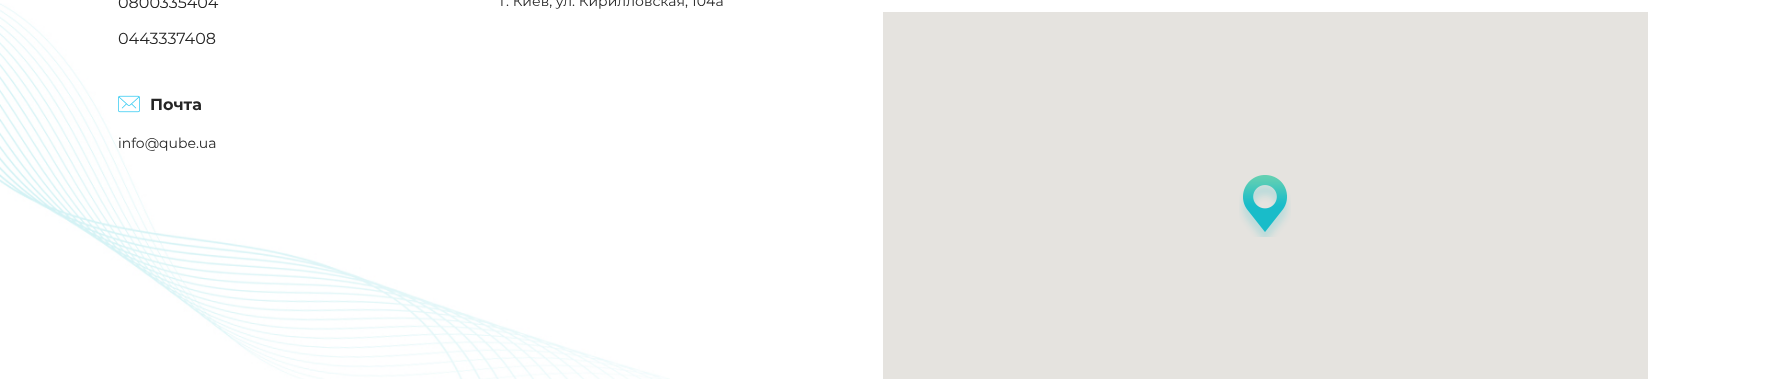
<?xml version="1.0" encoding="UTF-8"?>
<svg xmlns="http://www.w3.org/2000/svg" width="1765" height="379">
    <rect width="100%" height="100%" fill="#FFFFFF"/>
    <image x="0" y="3" width="670" height="376" href="img_01.png"/>
    <text x="118" y="8" font-family="Montserrat" font-size="16" fill="#252525">0800335404</text>
    <text x="118" y="44" font-family="Montserrat" font-size="16" fill="#252525">0443337408</text>
    <text x="500" y="6" font-family="Montserrat" font-size="14" fill="#252525">г. Киев, ул. Кирилловская, 104а</text>
    <image x="118" y="95" width="22" height="18" href="img_02.png"/>
    <text x="150" y="110" font-family="Montserrat" font-size="16" font-weight="700" fill="#252525">Почта</text>
    <text x="118" y="148" font-family="Montserrat" font-size="14" fill="#252525">info@qube.ua</text>
    <rect x="883" y="12" width="765" height="367" fill="#E5E3DF"/>
    <image x="1239" y="175" width="52" height="62" href="img_03.png"/>
</svg>
